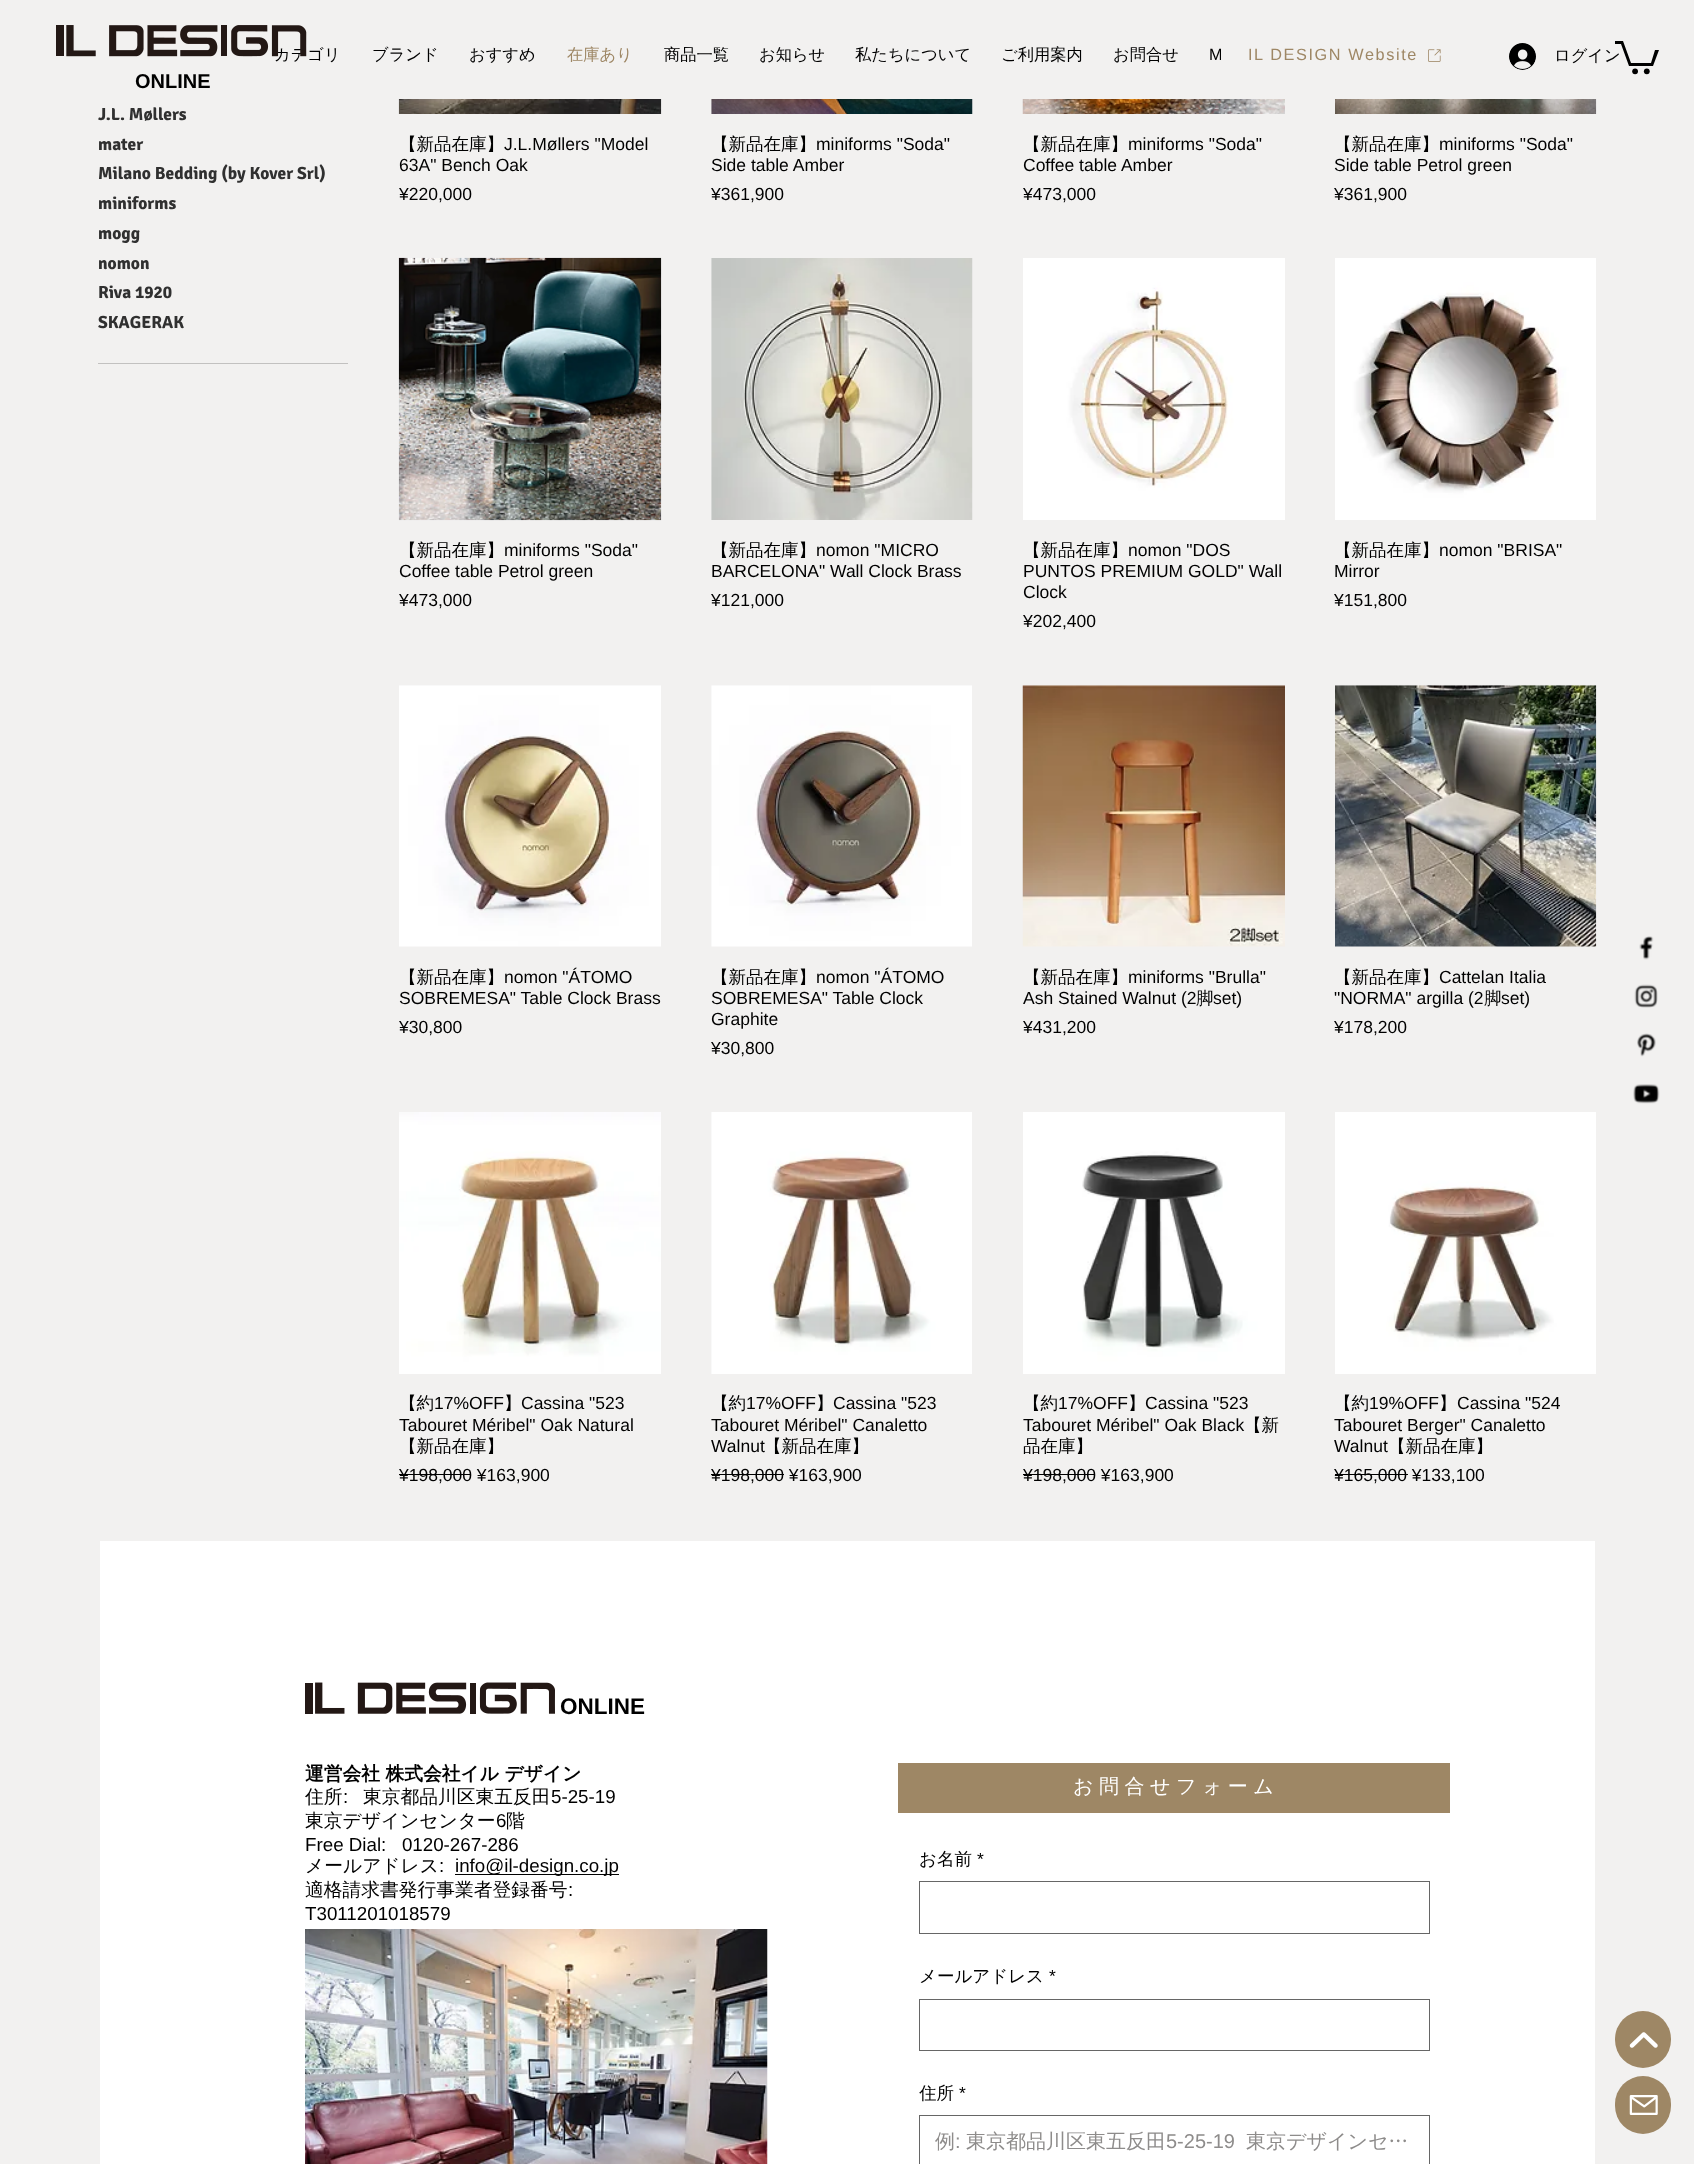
<?xml version="1.0" encoding="UTF-8"?>
<svg xmlns="http://www.w3.org/2000/svg" width="1694" height="2164">
    <rect width="100%" height="100%" fill="#F2F1F0"/>
    <text x="274" y="60" font-family="WenQuanYi Zen Hei" font-size="16.25" font-weight="500" fill="#000000">カテゴリ</text>
    <text x="372" y="60" font-family="WenQuanYi Zen Hei" font-size="16.25" font-weight="500" fill="#000000">ブランド</text>
    <text x="469" y="60" font-family="WenQuanYi Zen Hei" font-size="16.25" font-weight="500" fill="#000000">おすすめ</text>
    <text x="567" y="60" font-family="WenQuanYi Zen Hei" font-size="16.25" font-weight="500" fill="#9E8765">在庫あり</text>
    <text x="664" y="60" font-family="WenQuanYi Zen Hei" font-size="16.25" font-weight="500" fill="#000000">商品一覧</text>
    <text x="759" y="60" font-family="WenQuanYi Zen Hei" font-size="16.25" font-weight="500" fill="#000000">お知らせ</text>
    <text x="855" y="60" font-family="WenQuanYi Zen Hei" font-size="16.25" font-weight="500" fill="#000000">私たちについて</text>
    <text x="1001" y="60" font-family="WenQuanYi Zen Hei" font-size="16.25" font-weight="500" fill="#000000">ご利用案内</text>
    <text x="1113" y="60" font-family="WenQuanYi Zen Hei" font-size="16.25" font-weight="500" fill="#000000">お問合せ</text>
    <text x="1209" y="60" font-family="Liberation Sans" font-size="16.25" fill="#000000">M</text>
    <rect x="1221" y="48" width="1" height="12" fill="#F2F1F0"/>
    <text x="1248" y="60" font-family="Liberation Sans" font-size="16.25" letter-spacing="1.6" fill="#9E8765">IL DESIGN Website</text>
    <image x="1428" y="49" width="13" height="13" href="img_01.png"/>
    <image x="1509" y="43" width="27" height="27" href="img_02.png"/>
    <path d="M 1659 50 L 1653 66 H 1629 L 1621 44 H 1615 V 41 H 1623 L 1631 63 H 1651 L 1655 50" fill="#000000"/>
    <text x="1554" y="61" font-family="WenQuanYi Zen Hei" font-size="16.25" font-weight="500" fill="#000000">ログイン</text>
    <circle cx="1646.8" cy="71.3" r="2.9" fill="#000000"/>
    <circle cx="1635.1" cy="71.3" r="2.9" fill="#000000"/>
    <image x="56" y="25" width="251" height="32" href="img_03.png"/>
    <text x="135" y="88" font-family="Liberation Sans" font-size="20" font-weight="700" fill="#000000">ONLINE</text>
    <rect x="98" y="363" width="250" height="1" fill="#C2C1C0"/>
    <text font-family="Signika" font-size="17.5" font-weight="700" fill="#303030">
        <tspan x="98" y="120">J.L. Møllers</tspan>
        <tspan x="98" y="150">mater</tspan>
        <tspan x="98" y="179">Milano Bedding (by Kover Srl)</tspan>
        <tspan x="98" y="209">miniforms</tspan>
        <tspan x="98" y="239">mogg</tspan>
        <tspan x="98" y="269">nomon</tspan>
        <tspan x="98" y="298">Riva 1920</tspan>
        <tspan x="98" y="328">SKAGERAK</tspan>
    </text>
    <image x="398" y="99" width="264" height="15" href="img_04.png"/>
    <text x="399" y="150" font-family="WenQuanYi Zen Hei" font-size="17.5" font-weight="500" fill="#000000">【新品在庫】</text>
    <text x="504" y="150" font-family="Liberation Sans" font-size="17.5" fill="#000000">J.L.Møllers "Model</text>
    <text font-family="Liberation Sans" font-size="17.5" fill="#000000">
        <tspan x="399" y="171">63A" Bench Oak</tspan>
        <tspan x="399" y="200">¥220,000</tspan>
    </text>
    <image x="711" y="99" width="262" height="15" href="img_05.png"/>
    <text x="711" y="150" font-family="WenQuanYi Zen Hei" font-size="17.5" font-weight="500" fill="#000000">【新品在庫】</text>
    <text x="816" y="150" font-family="Liberation Sans" font-size="17.5" fill="#000000">miniforms "Soda"</text>
    <text font-family="Liberation Sans" font-size="17.5" fill="#000000">
        <tspan x="711" y="171">Side table Amber</tspan>
        <tspan x="711" y="200">¥361,900</tspan>
    </text>
    <image x="1022" y="99" width="263" height="15" href="img_06.png"/>
    <text x="1023" y="150" font-family="WenQuanYi Zen Hei" font-size="17.5" font-weight="500" fill="#000000">【新品在庫】</text>
    <text x="1128" y="150" font-family="Liberation Sans" font-size="17.5" fill="#000000">miniforms "Soda"</text>
    <text font-family="Liberation Sans" font-size="17.5" fill="#000000">
        <tspan x="1023" y="171">Coffee table Amber</tspan>
        <tspan x="1023" y="200">¥473,000</tspan>
    </text>
    <image x="1335" y="99" width="262" height="15" href="img_07.png"/>
    <text x="1334" y="150" font-family="WenQuanYi Zen Hei" font-size="17.5" font-weight="500" fill="#000000">【新品在庫】</text>
    <text x="1439" y="150" font-family="Liberation Sans" font-size="17.5" fill="#000000">miniforms "Soda"</text>
    <text font-family="Liberation Sans" font-size="17.5" fill="#000000">
        <tspan x="1334" y="171">Side table Petrol green</tspan>
        <tspan x="1334" y="200">¥361,900</tspan>
    </text>
    <image x="398" y="257" width="264" height="264" href="img_08.png"/>
    <text x="399" y="556" font-family="WenQuanYi Zen Hei" font-size="17.5" font-weight="500" fill="#000000">【新品在庫】</text>
    <text x="504" y="556" font-family="Liberation Sans" font-size="17.5" fill="#000000">miniforms "Soda"</text>
    <text font-family="Liberation Sans" font-size="17.5" fill="#000000">
        <tspan x="399" y="577">Coffee table Petrol green</tspan>
        <tspan x="399" y="606">¥473,000</tspan>
    </text>
    <image x="711" y="258" width="262" height="262" href="img_09.png"/>
    <text x="711" y="556" font-family="WenQuanYi Zen Hei" font-size="17.5" font-weight="500" fill="#000000">【新品在庫】</text>
    <text x="816" y="556" font-family="Liberation Sans" font-size="17.5" fill="#000000">nomon "MICRO</text>
    <text font-family="Liberation Sans" font-size="17.5" fill="#000000">
        <tspan x="711" y="577">BARCELONA" Wall Clock Brass</tspan>
        <tspan x="711" y="606">¥121,000</tspan>
    </text>
    <image x="1023" y="258" width="262" height="262" href="img_10.png"/>
    <text x="1023" y="556" font-family="WenQuanYi Zen Hei" font-size="17.5" font-weight="500" fill="#000000">【新品在庫】</text>
    <text x="1128" y="556" font-family="Liberation Sans" font-size="17.5" fill="#000000">nomon "DOS</text>
    <text font-family="Liberation Sans" font-size="17.5" fill="#000000">
        <tspan x="1023" y="577">PUNTOS PREMIUM GOLD" Wall</tspan>
        <tspan x="1023" y="598">Clock</tspan>
        <tspan x="1023" y="627">¥202,400</tspan>
    </text>
    <image x="1335" y="258" width="261" height="262" href="img_11.png"/>
    <text x="1334" y="556" font-family="WenQuanYi Zen Hei" font-size="17.5" font-weight="500" fill="#000000">【新品在庫】</text>
    <text x="1439" y="556" font-family="Liberation Sans" font-size="17.5" fill="#000000">nomon "BRISA"</text>
    <text font-family="Liberation Sans" font-size="17.5" fill="#000000">
        <tspan x="1334" y="577">Mirror</tspan>
        <tspan x="1334" y="606">¥151,800</tspan>
    </text>
    <image x="399" y="685" width="262" height="262" href="img_12.png"/>
    <text x="399" y="983" font-family="WenQuanYi Zen Hei" font-size="17.5" font-weight="500" fill="#000000">【新品在庫】</text>
    <text x="504" y="983" font-family="Liberation Sans" font-size="17.5" fill="#000000">nomon "ÁTOMO</text>
    <text font-family="Liberation Sans" font-size="17.5" fill="#000000">
        <tspan x="399" y="1004">SOBREMESA" Table Clock Brass</tspan>
        <tspan x="399" y="1033">¥30,800</tspan>
    </text>
    <image x="711" y="685" width="261" height="262" href="img_13.png"/>
    <text x="711" y="983" font-family="WenQuanYi Zen Hei" font-size="17.5" font-weight="500" fill="#000000">【新品在庫】</text>
    <text x="816" y="983" font-family="Liberation Sans" font-size="17.5" fill="#000000">nomon "ÁTOMO</text>
    <text font-family="Liberation Sans" font-size="17.5" fill="#000000">
        <tspan x="711" y="1004">SOBREMESA" Table Clock</tspan>
        <tspan x="711" y="1025">Graphite</tspan>
        <tspan x="711" y="1054">¥30,800</tspan>
    </text>
    <image x="1022" y="685" width="263" height="262" href="img_14.png"/>
    <text x="1023" y="983" font-family="WenQuanYi Zen Hei" font-size="17.5" font-weight="500" fill="#000000">【新品在庫】</text>
    <text x="1128" y="983" font-family="Liberation Sans" font-size="17.5" fill="#000000">miniforms "Brulla"</text>
    <text x="1023" y="1004" font-family="Liberation Sans" font-size="17.5" fill="#000000">Ash Stained Walnut (2</text>
    <text x="1196" y="1004" font-family="WenQuanYi Zen Hei" font-size="17.5" font-weight="500" fill="#000000">脚</text>
    <text x="1213" y="1004" font-family="Liberation Sans" font-size="17.5" fill="#000000">set)</text>
    <text x="1023" y="1033" font-family="Liberation Sans" font-size="17.5" fill="#000000">¥431,200</text>
    <image x="1335" y="685" width="262" height="262" href="img_15.png"/>
    <text x="1334" y="983" font-family="WenQuanYi Zen Hei" font-size="17.5" font-weight="500" fill="#000000">【新品在庫】</text>
    <text x="1439" y="983" font-family="Liberation Sans" font-size="17.5" fill="#000000">Cattelan Italia</text>
    <text x="1334" y="1004" font-family="Liberation Sans" font-size="17.5" fill="#000000">"NORMA" argilla (2</text>
    <text x="1484" y="1004" font-family="WenQuanYi Zen Hei" font-size="17.5" font-weight="500" fill="#000000">脚</text>
    <text x="1501" y="1004" font-family="Liberation Sans" font-size="17.5" fill="#000000">set)</text>
    <text x="1334" y="1033" font-family="Liberation Sans" font-size="17.5" fill="#000000">¥178,200</text>
    <image x="399" y="1112" width="262" height="262" href="img_16.png"/>
    <text x="399" y="1409" font-family="WenQuanYi Zen Hei" font-size="17.5" font-weight="500" fill="#000000">【約</text>
    <text x="434" y="1409" font-family="Liberation Sans" font-size="17.5" fill="#000000">17%OFF</text>
    <text x="504" y="1409" font-family="WenQuanYi Zen Hei" font-size="17.5" font-weight="500" fill="#000000">】</text>
    <text x="521" y="1409" font-family="Liberation Sans" font-size="17.5" fill="#000000">Cassina "523</text>
    <text x="399" y="1431" font-family="Liberation Sans" font-size="17.5" fill="#000000">Tabouret Méribel" Oak Natural</text>
    <text x="399" y="1452" font-family="WenQuanYi Zen Hei" font-size="17.5" font-weight="500" fill="#000000">【新品在庫】</text>
    <text x="399" y="1481" font-family="Liberation Sans" font-size="17.5" fill="#000000">¥198,000 ¥163,900</text>
    <rect x="399" y="1474" width="72" height="1" fill="#000000"/>
    <image x="711" y="1112" width="261" height="262" href="img_17.png"/>
    <text x="711" y="1409" font-family="WenQuanYi Zen Hei" font-size="17.5" font-weight="500" fill="#000000">【約</text>
    <text x="746" y="1409" font-family="Liberation Sans" font-size="17.5" fill="#000000">17%OFF</text>
    <text x="816" y="1409" font-family="WenQuanYi Zen Hei" font-size="17.5" font-weight="500" fill="#000000">】</text>
    <text x="833" y="1409" font-family="Liberation Sans" font-size="17.5" fill="#000000">Cassina "523</text>
    <text font-family="Liberation Sans" font-size="17.5" fill="#000000">
        <tspan x="711" y="1431">Tabouret Méribel" Canaletto</tspan>
        <tspan x="711" y="1452">Walnut</tspan>
    </text>
    <text x="764" y="1452" font-family="WenQuanYi Zen Hei" font-size="17.5" font-weight="500" fill="#000000">【新品在庫】</text>
    <text x="711" y="1481" font-family="Liberation Sans" font-size="17.5" fill="#000000">¥198,000 ¥163,900</text>
    <rect x="711" y="1474" width="73" height="1" fill="#000000"/>
    <image x="1023" y="1112" width="262" height="262" href="img_18.png"/>
    <text x="1023" y="1409" font-family="WenQuanYi Zen Hei" font-size="17.5" font-weight="500" fill="#000000">【約</text>
    <text x="1058" y="1409" font-family="Liberation Sans" font-size="17.5" fill="#000000">17%OFF</text>
    <text x="1128" y="1409" font-family="WenQuanYi Zen Hei" font-size="17.5" font-weight="500" fill="#000000">】</text>
    <text x="1145" y="1409" font-family="Liberation Sans" font-size="17.5" fill="#000000">Cassina "523</text>
    <text x="1023" y="1431" font-family="Liberation Sans" font-size="17.5" fill="#000000">Tabouret Méribel" Oak Black</text>
    <text x="1244" y="1431" font-family="WenQuanYi Zen Hei" font-size="17.5" font-weight="500" fill="#000000">【新</text>
    <text x="1023" y="1452" font-family="WenQuanYi Zen Hei" font-size="17.5" font-weight="500" fill="#000000">品在庫】</text>
    <text x="1023" y="1481" font-family="Liberation Sans" font-size="17.5" fill="#000000">¥198,000 ¥163,900</text>
    <rect x="1023" y="1474" width="72" height="1" fill="#000000"/>
    <image x="1335" y="1112" width="261" height="262" href="img_19.png"/>
    <text x="1334" y="1409" font-family="WenQuanYi Zen Hei" font-size="17.5" font-weight="500" fill="#000000">【約</text>
    <text x="1369" y="1409" font-family="Liberation Sans" font-size="17.5" fill="#000000">19%OFF</text>
    <text x="1439" y="1409" font-family="WenQuanYi Zen Hei" font-size="17.5" font-weight="500" fill="#000000">】</text>
    <text x="1457" y="1409" font-family="Liberation Sans" font-size="17.5" fill="#000000">Cassina "524</text>
    <text font-family="Liberation Sans" font-size="17.5" fill="#000000">
        <tspan x="1334" y="1431">Tabouret Berger" Canaletto</tspan>
        <tspan x="1334" y="1452">Walnut</tspan>
    </text>
    <text x="1388" y="1452" font-family="WenQuanYi Zen Hei" font-size="17.5" font-weight="500" fill="#000000">【新品在庫】</text>
    <text x="1334" y="1481" font-family="Liberation Sans" font-size="17.5" fill="#000000">¥165,000 ¥133,100</text>
    <rect x="1335" y="1474" width="73" height="1" fill="#000000"/>
    <image x="1639" y="936" width="15" height="24" href="img_20.png"/>
    <image x="1634" y="984" width="24" height="24" href="img_21.png"/>
    <image x="1637" y="1033" width="19" height="24" href="img_22.png"/>
    <image x="1633" y="1084" width="27" height="20" href="img_23.png"/>
    <rect x="100" y="1541" width="1495" height="623" fill="#FFFFFF"/>
    <image x="305" y="1682" width="250" height="32" href="img_24.png"/>
    <text x="560" y="1714" font-family="Liberation Sans" font-size="22.5" font-weight="700" fill="#000000">ONLINE</text>
    <text x="305" y="1780" font-family="WenQuanYi Zen Hei" font-size="18.75" font-weight="700" fill="#000000">運営会社 株式会社イル デザイン</text>
    <text x="305" y="1803" font-family="WenQuanYi Zen Hei" font-size="18.75" font-weight="500" fill="#000000">住所</text>
    <text x="343" y="1803" font-family="Liberation Sans" font-size="18.75" fill="#000000">:</text>
    <text x="363" y="1803" font-family="WenQuanYi Zen Hei" font-size="18.75" font-weight="500" fill="#000000">東京都品川区東五反田</text>
    <text x="551" y="1803" font-family="Liberation Sans" font-size="18.75" fill="#000000">5-25-19</text>
    <text x="305" y="1827" font-family="WenQuanYi Zen Hei" font-size="18.75" font-weight="500" fill="#000000">東京デザインセンター</text>
    <text x="496" y="1827" font-family="Liberation Sans" font-size="18.75" fill="#000000">6</text>
    <text x="506" y="1827" font-family="WenQuanYi Zen Hei" font-size="18.75" font-weight="500" fill="#000000">階</text>
    <text x="305" y="1851" font-family="Liberation Sans" font-size="18.75" fill="#000000" xml:space="preserve">Free Dial:   0120-267-286</text>
    <text x="305" y="1872" font-family="WenQuanYi Zen Hei" font-size="18.75" font-weight="500" fill="#000000">メールアドレス</text>
    <text x="439" y="1872" font-family="Liberation Sans" font-size="18.75" fill="#000000">:</text>
    <rect x="455" y="1874" width="164" height="1" fill="#000000"/>
    <text x="455" y="1872" font-family="Liberation Sans" font-size="18.75" fill="#000000">info@il-design.co.jp</text>
    <text x="305" y="1896" font-family="WenQuanYi Zen Hei" font-size="18.75" font-weight="500" fill="#000000">適格請求書発行事業者登録番号</text>
    <text x="568" y="1896" font-family="Liberation Sans" font-size="18.75" fill="#000000">:</text>
    <text x="305" y="1920" font-family="Liberation Sans" font-size="18.75" fill="#000000">T3011201018579</text>
    <rect x="898" y="1763" width="552" height="50" fill="#9E8765"/>
    <text x="1073" y="1793" word-spacing="-0.5" font-family="WenQuanYi Zen Hei" font-size="20" font-weight="500" fill="#FFFFFF">お 問 合 せ フ ォ ー ム</text>
    <image x="305" y="1929" width="463" height="235" href="img_25.png"/>
    <text x="919" y="1865" font-family="WenQuanYi Zen Hei" font-size="17.5" font-weight="500" fill="#000000">お名前</text>
    <text x="977" y="1865" font-family="Liberation Sans" font-size="17.5" fill="#000000">*</text>
    <rect x="919.5" y="1881.5" width="510" height="52" fill="none" stroke="#666666"/>
    <text x="919" y="1982" font-family="WenQuanYi Zen Hei" font-size="17.5" font-weight="500" fill="#000000">メールアドレス</text>
    <text x="1049" y="1982" font-family="Liberation Sans" font-size="17.5" fill="#000000">*</text>
    <rect x="919.5" y="1999.5" width="510" height="51" fill="none" stroke="#666666"/>
    <text x="919" y="2099" font-family="WenQuanYi Zen Hei" font-size="17.5" font-weight="500" fill="#000000">住所</text>
    <text x="959" y="2099" font-family="Liberation Sans" font-size="17.5" fill="#000000">*</text>
    <rect x="919.5" y="2115.5" width="510" height="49" fill="none" stroke="#666666"/>
    <text x="935" y="2148" font-family="WenQuanYi Zen Hei" font-size="20" font-weight="500" fill="#8E8C8B">例</text>
    <text x="955" y="2148" font-family="Liberation Sans" font-size="20" fill="#8E8C8B">:</text>
    <text x="966" y="2148" font-family="WenQuanYi Zen Hei" font-size="20" font-weight="500" fill="#8E8C8B">東京都品川区東五反田</text>
    <text x="1166" y="2148" font-family="Liberation Sans" font-size="20" fill="#8E8C8B">5-25-19</text>
    <text x="1246" y="2148" font-family="WenQuanYi Zen Hei" font-size="20" font-weight="500" fill="#8E8C8B">東京デザインセ…</text>
    <rect x="1615" y="2011" width="56" height="57" rx="28" fill="#9E8765"/>
    <image x="1629" y="2032" width="29" height="16" href="img_26.png"/>
    <rect x="1615" y="2076" width="56" height="58" rx="28" fill="#9E8765"/>
    <image x="1629" y="2095" width="29" height="20" href="img_27.png"/>
</svg>
